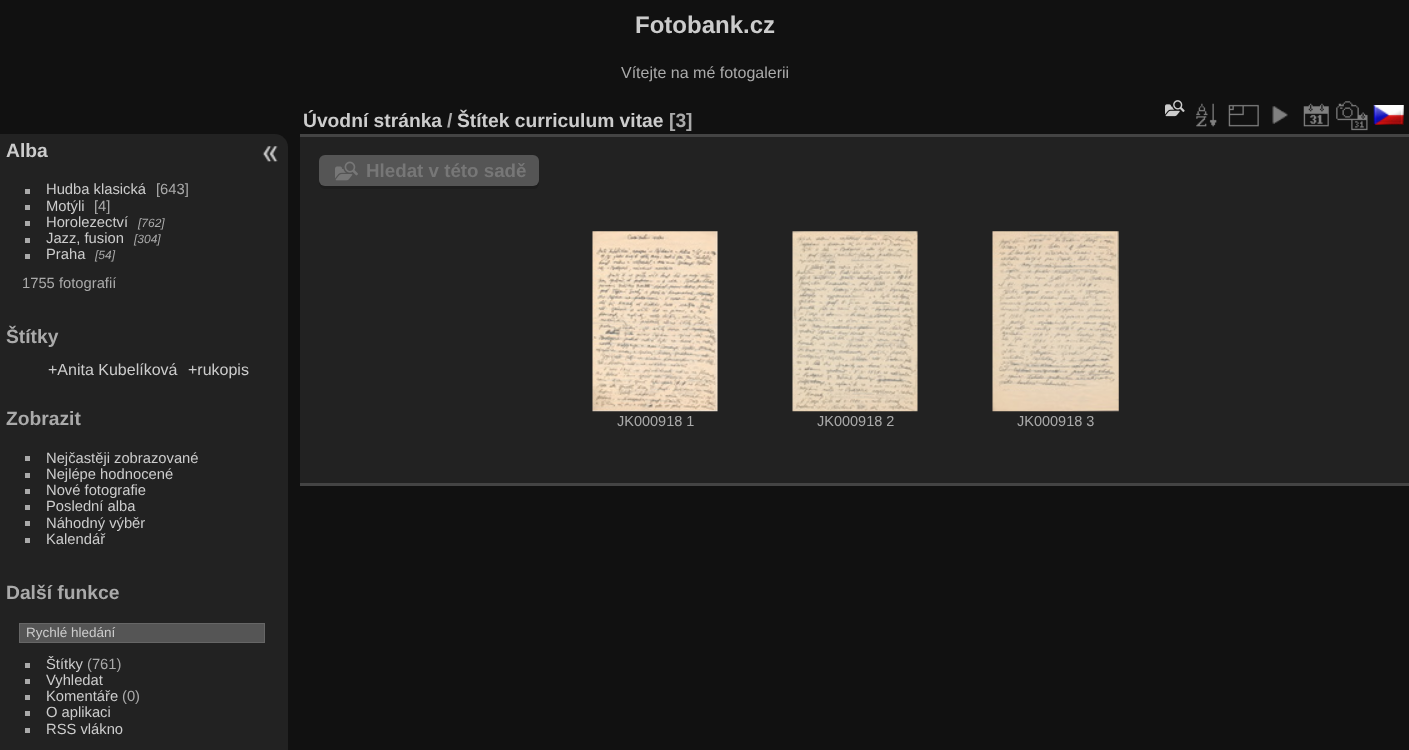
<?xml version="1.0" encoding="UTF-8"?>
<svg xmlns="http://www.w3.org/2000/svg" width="1409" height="750">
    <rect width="100%" height="100%" fill="#111111"/>
    <text x="635" y="33" font-family="Liberation Sans" font-size="24" font-weight="700" fill="#CCCCCC">Fotobank.cz</text>
    <text x="621" y="78" font-family="Liberation Sans" font-size="16" fill="#AAAAAA">Vítejte na mé fotogalerii</text>
    <path d="M 0 134 H 275 C 282 134 288 140 288 147 V 750 C 288 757 282 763 275 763 H 0 Z" fill="#222222"/>
    <text x="6" y="157" font-family="Liberation Sans" font-size="19.25" font-weight="700" fill="#CCCCCC">Alba</text>
    <rect x="25" y="189" width="5" height="5" fill="#AAAAAA"/>
    <text x="46" y="194" font-family="Liberation Sans" font-size="14.75" fill="#CCCCCC">Hudba klasická</text>
    <text x="156" y="194" font-family="Liberation Sans" font-size="14.75" fill="#AAAAAA">[643]</text>
    <rect x="25" y="205" width="5" height="5" fill="#AAAAAA"/>
    <text x="46" y="211" font-family="Liberation Sans" font-size="14.75" fill="#CCCCCC">Motýli</text>
    <text x="94" y="211" font-family="Liberation Sans" font-size="14.75" fill="#AAAAAA">[4]</text>
    <rect x="25" y="221" width="5" height="5" fill="#AAAAAA"/>
    <text x="46" y="227" font-family="Liberation Sans" font-size="14.75" fill="#CCCCCC">Horolezectví</text>
    <text x="138" y="227" font-family="Liberation Sans" font-size="12" font-style="italic" fill="#AAAAAA">[762]</text>
    <rect x="25" y="238" width="5" height="5" fill="#AAAAAA"/>
    <text x="46" y="243" font-family="Liberation Sans" font-size="14.75" fill="#CCCCCC">Jazz, fusion</text>
    <text x="134" y="243" font-family="Liberation Sans" font-size="12" font-style="italic" fill="#AAAAAA">[304]</text>
    <rect x="25" y="254" width="5" height="5" fill="#AAAAAA"/>
    <text x="46" y="259" font-family="Liberation Sans" font-size="14.75" fill="#CCCCCC">Praha</text>
    <text x="95" y="259" font-family="Liberation Sans" font-size="12" font-style="italic" fill="#AAAAAA">[54]</text>
    <text x="22" y="288" font-family="Liberation Sans" font-size="14.75" fill="#AAAAAA">1755 fotografií</text>
    <text x="6" y="343" font-family="Liberation Sans" font-size="19.25" font-weight="700" fill="#AAAAAA">Štítky</text>
    <text x="48" y="375" font-family="Liberation Sans" font-size="16" fill="#CCCCCC">+Anita Kubelíková</text>
    <text x="188" y="375" font-family="Liberation Sans" font-size="16" fill="#CCCCCC">+rukopis</text>
    <text x="6" y="425" font-family="Liberation Sans" font-size="19.25" font-weight="700" fill="#AAAAAA">Zobrazit</text>
    <rect x="25" y="456" width="5" height="5" fill="#AAAAAA"/>
    <text x="46" y="463" font-family="Liberation Sans" font-size="14.75" fill="#CCCCCC">Nejčastěji zobrazované</text>
    <rect x="25" y="473" width="5" height="5" fill="#AAAAAA"/>
    <text x="46" y="479" font-family="Liberation Sans" font-size="14.75" fill="#CCCCCC">Nejlépe hodnocené</text>
    <rect x="25" y="489" width="5" height="5" fill="#AAAAAA"/>
    <text x="46" y="495" font-family="Liberation Sans" font-size="14.75" fill="#CCCCCC">Nové fotografie</text>
    <rect x="25" y="505" width="5" height="5" fill="#AAAAAA"/>
    <text x="46" y="511" font-family="Liberation Sans" font-size="14.75" fill="#CCCCCC">Poslední alba</text>
    <rect x="25" y="521" width="5" height="5" fill="#AAAAAA"/>
    <text x="46" y="528" font-family="Liberation Sans" font-size="14.75" fill="#CCCCCC">Náhodný výběr</text>
    <rect x="25" y="538" width="5" height="5" fill="#AAAAAA"/>
    <text x="46" y="544" font-family="Liberation Sans" font-size="14.75" fill="#CCCCCC">Kalendář</text>
    <text x="6" y="599" font-family="Liberation Sans" font-size="19.25" font-weight="700" fill="#AAAAAA">Další funkce</text>
    <rect x="19.5" y="623.5" width="245" height="19" fill="#555555" stroke="#666666"/>
    <text x="26" y="637" font-family="Liberation Sans" font-size="13.5" fill="#CCCCCC">Rychlé hledání</text>
    <rect x="25" y="663" width="5" height="5" fill="#AAAAAA"/>
    <text x="46" y="669" font-family="Liberation Sans" font-size="14.75" fill="#CCCCCC">Štítky</text>
    <text x="87" y="669" font-family="Liberation Sans" font-size="14.75" fill="#AAAAAA">(761)</text>
    <rect x="25" y="679" width="5" height="5" fill="#AAAAAA"/>
    <text x="46" y="685" font-family="Liberation Sans" font-size="14.75" fill="#CCCCCC">Vyhledat</text>
    <rect x="25" y="695" width="5" height="5" fill="#AAAAAA"/>
    <text x="46" y="701" font-family="Liberation Sans" font-size="14.75" fill="#CCCCCC">Komentáře</text>
    <text x="122" y="701" font-family="Liberation Sans" font-size="14.75" fill="#AAAAAA">(0)</text>
    <rect x="25" y="711" width="5" height="5" fill="#AAAAAA"/>
    <text x="46" y="717" font-family="Liberation Sans" font-size="14.75" fill="#CCCCCC">O aplikaci</text>
    <rect x="25" y="728" width="5" height="5" fill="#AAAAAA"/>
    <text x="46" y="734" font-family="Liberation Sans" font-size="14.75" fill="#CCCCCC">RSS vlákno</text>
    <image x="262" y="146" width="16" height="16" href="img_01.png"/>
    <rect x="300" y="137" width="1109" height="346" fill="#222222"/>
    <rect x="300" y="483" width="1109" height="3" fill="#444444"/>
    <rect x="300" y="134" width="1109" height="3" fill="#444444"/>
    <text x="303" y="127" font-family="Liberation Sans" font-size="19.25" font-weight="700" fill="#CCCCCC">Úvodní stránka</text>
    <text x="447" y="127" font-family="Liberation Sans" font-size="19.25" font-weight="700" fill="#AAAAAA">/</text>
    <text x="457" y="127" font-family="Liberation Sans" font-size="19.25" font-weight="700" fill="#CCCCCC">Štítek curriculum vitae</text>
    <text x="669" y="127" font-family="Liberation Sans" font-size="19.25" font-weight="700" fill="#AAAAAA">[3]</text>
    <image x="1165" y="100" width="20" height="17" href="img_02.png"/>
    <image x="1196" y="103" width="21" height="24" href="img_03.png"/>
    <image x="1228" y="104" width="31" height="23" href="img_04.png"/>
    <image x="1272" y="106" width="16" height="18" href="img_05.png"/>
    <image x="1303" y="103" width="26" height="24" href="img_06.png"/>
    <image x="1336" y="101" width="32" height="30" href="img_07.png"/>
    <image x="1373" y="105" width="31" height="20" href="img_08.png"/>
    <path d="M 319 182 C 319 185 321 189 325 189 H 533 C 540 189 539 181 539 177 V 162 V 180 C 539 183 536 186 532 186 H 325 C 322 186 320 184 319 182 Z" fill="#1D1D1D"/>
    <rect x="319" y="155" width="220" height="31" rx="6" fill="#555555"/>
    <image x="335" y="161" width="23" height="20" href="img_09.png"/>
    <text x="366" y="177" font-family="Liberation Sans" font-size="18.75" font-weight="700" fill="#777777">Hledat v této sadě</text>
    <image x="592" y="231" width="126" height="181" href="img_10.png"/>
    <text x="617" y="426" font-family="Liberation Sans" font-size="14.5" fill="#AAAAAA">JK000918 1</text>
    <image x="792" y="231" width="126" height="181" href="img_11.png"/>
    <text x="817" y="426" font-family="Liberation Sans" font-size="14.5" fill="#AAAAAA">JK000918 2</text>
    <image x="992" y="231" width="127" height="181" href="img_12.png"/>
    <text x="1017" y="426" font-family="Liberation Sans" font-size="14.5" fill="#AAAAAA">JK000918 3</text>
</svg>
